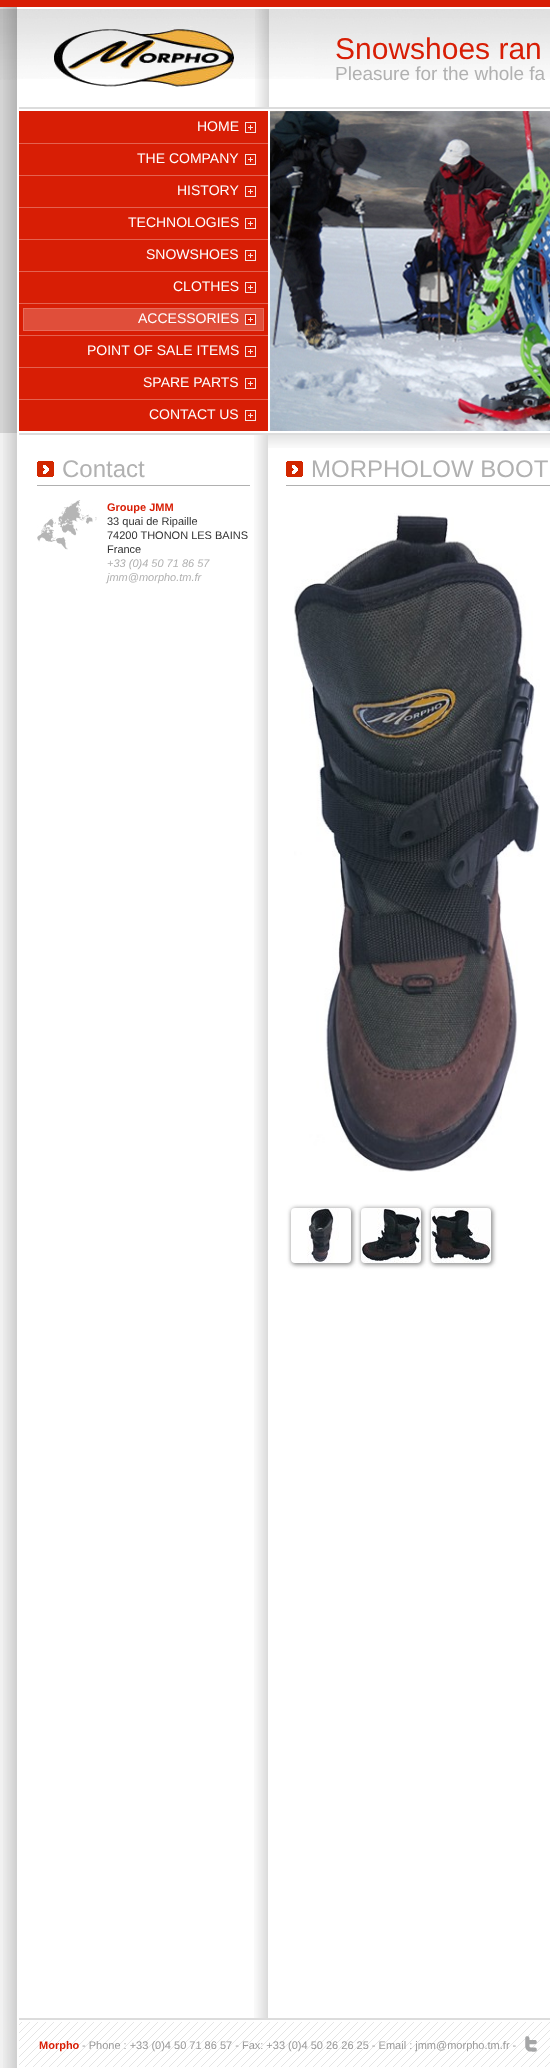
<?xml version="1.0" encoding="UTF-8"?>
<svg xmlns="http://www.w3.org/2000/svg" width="550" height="2068">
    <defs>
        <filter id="blur1" x="-50%" y="-200%" width="200%" height="500%"><feGaussianBlur stdDeviation="2"/></filter>
    </defs>
    <rect width="100%" height="100%" fill="#F1F1F1"/>
    <rect x="0" y="80" width="17" height="353" fill="#D4D4D4"/>
    <image x="0" y="0" width="550" height="80" href="img_01.png"/>
    <image x="3" y="7" width="14" height="426" href="img_02.png"/>
    <rect x="17" y="7" width="533" height="2061" fill="#FFFFFF"/>
    <image x="17" y="9" width="533" height="70" href="img_03.png"/>
    <rect x="19" y="107" width="531" height="2" fill="#DCDCDC"/>
    <image x="255" y="9" width="14" height="98" href="img_04.png"/>
    <image x="54" y="24" width="180" height="63" href="img_05.png"/>
    <text x="335" y="59" font-family="Liberation Sans" font-size="30" fill="#D81E05">Snowshoes ran</text>
    <text x="335" y="80" font-family="Liberation Sans" font-size="19" fill="#B1B1B1">Pleasure for the whole fa</text>
    <rect x="19" y="111" width="249" height="320" fill="#D81E05"/>
    <image x="245" y="122" width="11" height="11" href="img_06.png"/>
    <text x="197" y="131" font-family="Liberation Sans" font-size="14" fill="#FFFFFF">HOME</text>
    <rect x="19" y="143" width="249" height="1" fill="#E46250"/>
    <image x="245" y="154" width="11" height="11" href="img_06.png"/>
    <text x="137" y="163" font-family="Liberation Sans" font-size="14" fill="#FFFFFF">THE COMPANY</text>
    <rect x="19" y="175" width="249" height="1" fill="#E46250"/>
    <image x="245" y="186" width="11" height="11" href="img_06.png"/>
    <text x="177" y="195" font-family="Liberation Sans" font-size="14" fill="#FFFFFF">HISTORY</text>
    <rect x="19" y="207" width="249" height="1" fill="#E46250"/>
    <image x="245" y="218" width="11" height="11" href="img_06.png"/>
    <text x="128" y="227" font-family="Liberation Sans" font-size="14" fill="#FFFFFF">TECHNOLOGIES</text>
    <rect x="19" y="239" width="249" height="1" fill="#E46250"/>
    <image x="245" y="250" width="11" height="11" href="img_06.png"/>
    <text x="146" y="259" font-family="Liberation Sans" font-size="14" fill="#FFFFFF">SNOWSHOES</text>
    <rect x="19" y="271" width="249" height="1" fill="#E46250"/>
    <image x="245" y="282" width="11" height="11" href="img_06.png"/>
    <text x="173" y="291" font-family="Liberation Sans" font-size="14" fill="#FFFFFF">CLOTHES</text>
    <rect x="19" y="303" width="249" height="1" fill="#E46250"/>
    <rect x="23.5" y="308.5" width="240" height="22" fill="#E04E3A" stroke="#E66D5D"/>
    <image x="245" y="314" width="11" height="11" href="img_06.png"/>
    <text x="138" y="323" font-family="Liberation Sans" font-size="14" fill="#FFFFFF">ACCESSORIES</text>
    <rect x="19" y="335" width="249" height="1" fill="#E46250"/>
    <image x="245" y="346" width="11" height="11" href="img_06.png"/>
    <text x="87" y="355" font-family="Liberation Sans" font-size="14" fill="#FFFFFF">POINT OF SALE ITEMS</text>
    <rect x="19" y="367" width="249" height="1" fill="#E46250"/>
    <image x="245" y="378" width="11" height="11" href="img_06.png"/>
    <text x="143" y="387" font-family="Liberation Sans" font-size="14" fill="#FFFFFF">SPARE PARTS</text>
    <rect x="19" y="399" width="249" height="1" fill="#E46250"/>
    <image x="245" y="410" width="11" height="11" href="img_06.png"/>
    <text x="149" y="419" font-family="Liberation Sans" font-size="14" fill="#FFFFFF">CONTACT US</text>
    <image x="270" y="111" width="280" height="320" href="img_07.png"/>
    <image x="3" y="433" width="14" height="1635" href="img_08.png"/>
    <rect x="19" y="433" width="531" height="2" fill="#DCDCDC"/>
    <rect x="19" y="2018" width="531" height="2" fill="#DCDCDC"/>
    <image x="254" y="435" width="14" height="1583" href="img_09.png"/>
    <image x="37" y="461" width="17" height="16" href="img_10.png"/>
    <rect x="37" y="485" width="213" height="1" fill="#B0B0B0"/>
    <text x="62" y="477" font-family="Liberation Sans" font-size="24" fill="#B1B1B1">Contact</text>
    <image x="37" y="500" width="60" height="50" href="img_11.png"/>
    <text x="107" y="511" font-family="Liberation Sans" font-size="11" font-weight="700" fill="#D81E05">Groupe JMM</text>
    <text font-family="Liberation Sans" font-size="11" fill="#313131">
        <tspan x="107" y="525">33 quai de Ripaille</tspan>
        <tspan x="107" y="539">74200 THONON LES BAINS</tspan>
        <tspan x="107" y="553">France</tspan>
    </text>
    <text font-family="Liberation Sans" font-size="11" font-style="italic" fill="#B1B1B1">
        <tspan x="107" y="567">+33 (0)4 50 71 86 57</tspan>
        <tspan x="107" y="581">jmm@morpho.tm.fr</tspan>
    </text>
    <image x="268" y="435" width="282" height="13" href="img_12.png"/>
    <image x="286" y="461" width="17" height="16" href="img_10.png"/>
    <rect x="286" y="485" width="264" height="1" fill="#B0B0B0"/>
    <text x="311" y="477" font-family="Liberation Sans" font-size="24" fill="#B1B1B1">MORPHOLOW BOOT</text>
    <image x="294" y="513" width="246" height="659" href="img_13.png"/>
    <rect x="291" y="1208" width="62" height="57" rx="5" fill="#919191" filter="url(#blur1)"/>
    <image x="291" y="1208" width="60" height="55" href="img_14.png"/>
    <rect x="361" y="1208" width="62" height="57" rx="5" fill="#919191" filter="url(#blur1)"/>
    <image x="361" y="1208" width="60" height="55" href="img_15.png"/>
    <rect x="431" y="1208" width="62" height="57" rx="5" fill="#919191" filter="url(#blur1)"/>
    <image x="431" y="1208" width="60" height="55" href="img_16.png"/>
    <image x="19" y="2022" width="531" height="45" href="img_17.png"/>
    <text x="39" y="2049" font-family="Liberation Sans" font-size="11" font-weight="700" fill="#D81E05">Morpho</text>
    <text x="82" y="2049" font-family="Liberation Sans" font-size="11" fill="#999999">- Phone : +33 (0)4 50 71 86 57 - Fax: +33 (0)4 50 26 26 25 - Email : jmm@morpho.tm.fr -</text>
    <image x="525" y="2036" width="12" height="16" href="img_18.png"/>
</svg>
